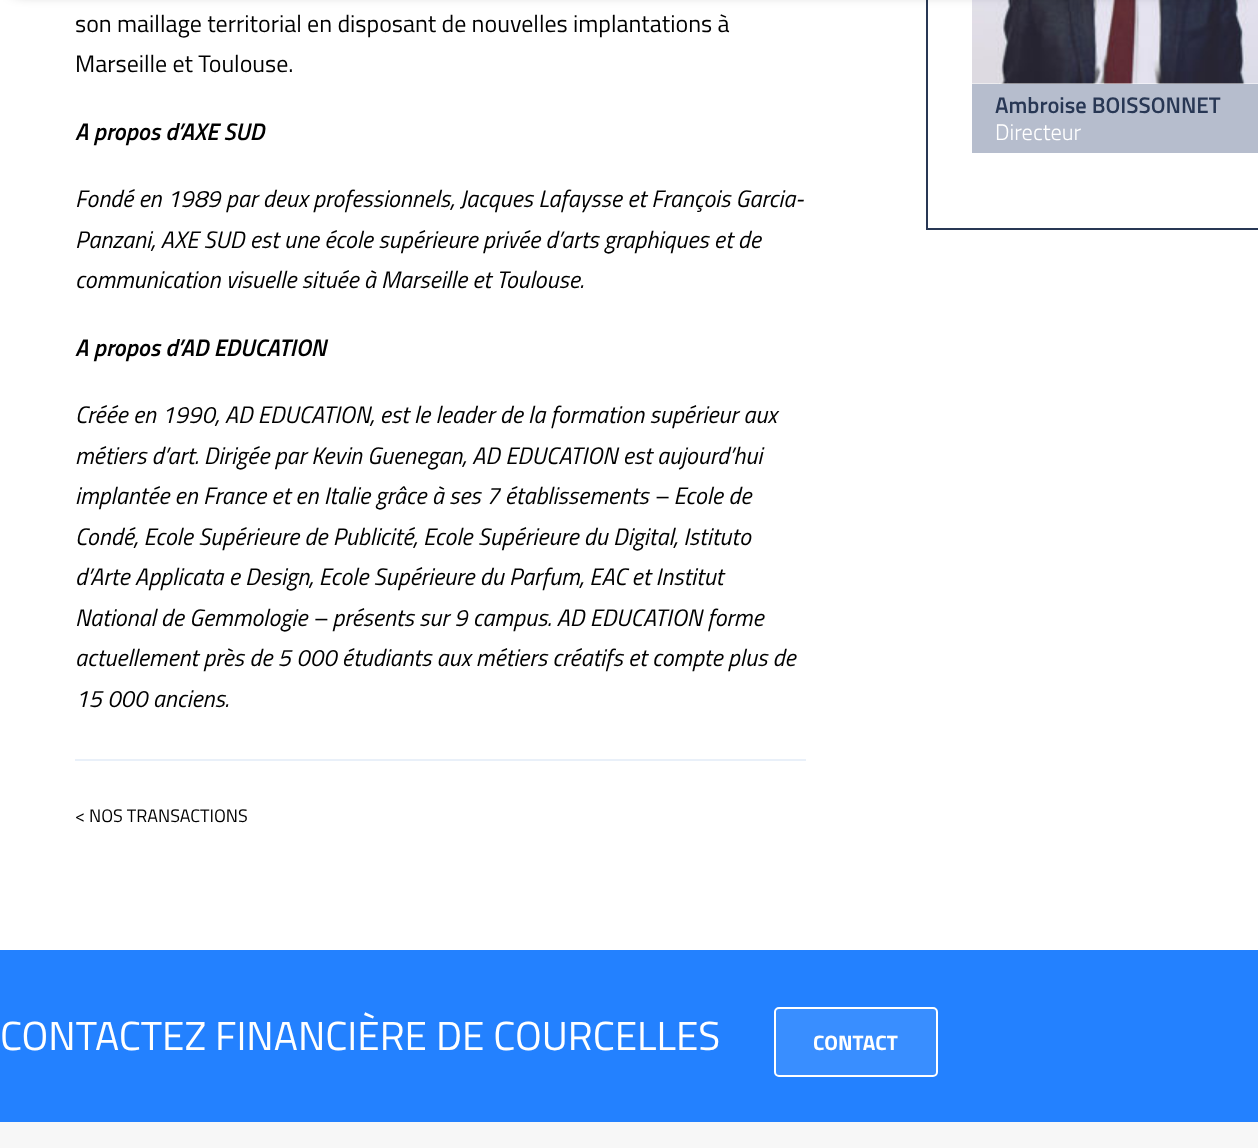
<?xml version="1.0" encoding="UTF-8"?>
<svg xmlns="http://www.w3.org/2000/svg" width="1258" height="1148">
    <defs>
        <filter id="blur1" x="-50%" y="-200%" width="200%" height="500%"><feGaussianBlur stdDeviation="7.5"/></filter>
    </defs>
    <rect width="100%" height="100%" fill="#FFFFFF"/>
    <rect x="927" y="-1" width="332" height="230" fill="none" stroke="#283754" stroke-width="2"/>
    <image x="972" y="0" width="286" height="84" href="img_01.png"/>
    <rect x="15" y="-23" width="1229" height="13" fill="#000000" fill-opacity="0.6" filter="url(#blur1)"/>
    <text font-family="Titillium Web" font-size="24" fill="#000000">
        <tspan x="75" y="32">son maillage territorial en disposant de nouvelles implantations à</tspan>
        <tspan x="75" y="72">Marseille et Toulouse.</tspan>
    </text>
    <text x="75" y="140" font-family="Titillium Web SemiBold" font-size="24" font-weight="600" font-style="italic" fill="#000000">A propos d’AXE SUD</text>
    <text font-family="Titillium Web" font-size="24" font-style="italic" fill="#000000">
        <tspan x="75" y="207">Fondé en 1989 par deux professionnels, Jacques Lafaysse et François Garcia-</tspan>
        <tspan x="75" y="248">Panzani, AXE SUD est une école supérieure privée d’arts graphiques et de</tspan>
        <tspan x="75" y="288">communication visuelle située à Marseille et Toulouse.</tspan>
    </text>
    <text x="75" y="356" font-family="Titillium Web SemiBold" font-size="24" font-weight="600" font-style="italic" fill="#000000">A propos d’AD EDUCATION</text>
    <text font-family="Titillium Web" font-size="24" font-style="italic" fill="#000000">
        <tspan x="75" y="423">Créée en 1990, AD EDUCATION, est le leader de la formation supérieur aux</tspan>
        <tspan x="75" y="464">métiers d’art. Dirigée par Kevin Guenegan, AD EDUCATION est aujourd’hui</tspan>
        <tspan x="75" y="504">implantée en France et en Italie grâce à ses 7 établissements – Ecole de</tspan>
        <tspan x="75" y="545">Condé, Ecole Supérieure de Publicité, Ecole Supérieure du Digital, Istituto</tspan>
        <tspan x="75" y="585">d’Arte Applicata e Design, Ecole Supérieure du Parfum, EAC et Institut</tspan>
        <tspan x="75" y="626">National de Gemmologie – présents sur 9 campus. AD EDUCATION forme</tspan>
        <tspan x="75" y="666">actuellement près de 5 000 étudiants aux métiers créatifs et compte plus de</tspan>
        <tspan x="75" y="707">15 000 anciens.</tspan>
    </text>
    <rect x="75" y="759" width="731" height="2" fill="#E9F0F9"/>
    <text x="75" y="822" font-family="Titillium Web" font-size="18" fill="#000000">&lt; NOS TRANSACTIONS</text>
    <rect x="972" y="84" width="286" height="69" fill="#B6BDCD"/>
    <text x="995" y="113" font-family="Titillium Web SemiBold" font-size="22.5" font-weight="600" fill="#283754">Ambroise BOISSONNET</text>
    <text x="995" y="140" font-family="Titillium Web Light" font-size="22.5" font-weight="300" fill="#FFFFFF">Directeur</text>
    <rect x="0" y="950" width="1258" height="172" fill="#2381FF"/>
    <text x="0" y="1050" font-family="Titillium Web" font-size="40.5" fill="#FFFFFF">CONTACTEZ FINANCIÈRE DE COURCELLES</text>
    <rect x="775" y="1008" width="162" height="68" rx="4" fill="#398EFF" stroke="#FFFFFF" stroke-width="2"/>
    <text x="813" y="1050" font-family="Titillium Web" font-size="21" font-weight="700" fill="#FFFFFF">CONTACT</text>
    <rect x="0" y="1122" width="1258" height="26" fill="#F7F7F7"/>
</svg>
